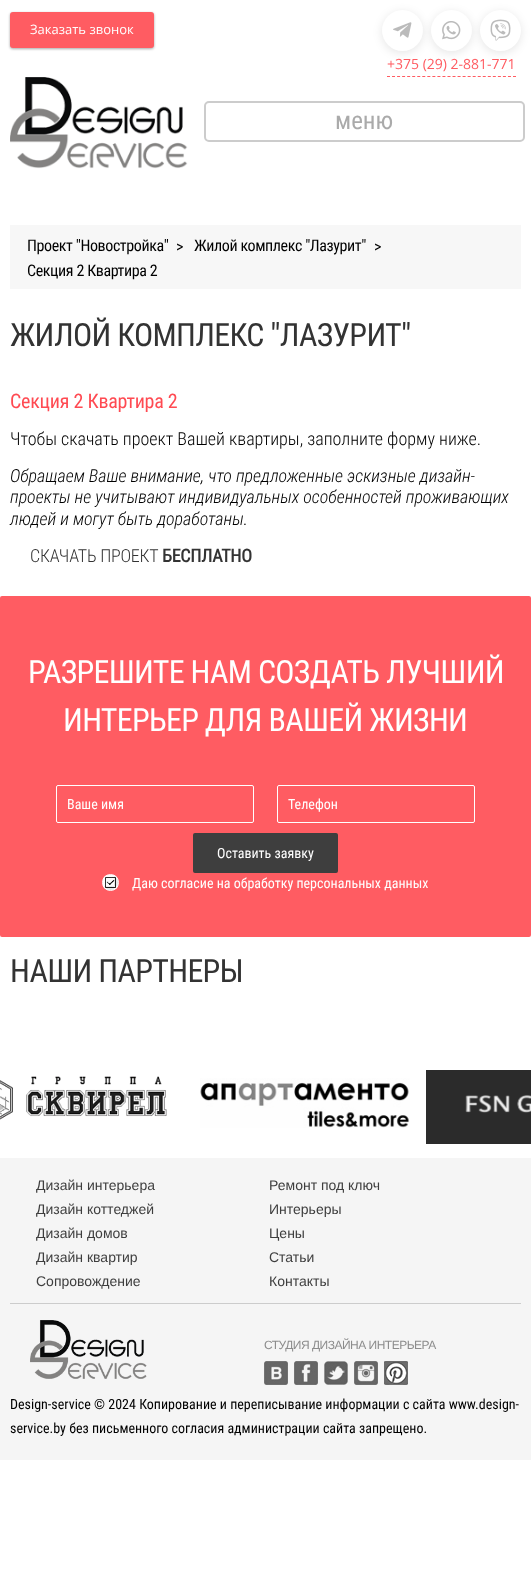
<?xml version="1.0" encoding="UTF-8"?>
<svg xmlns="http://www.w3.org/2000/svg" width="531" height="1596">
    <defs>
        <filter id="blur1" x="-50%" y="-200%" width="200%" height="500%"><feGaussianBlur stdDeviation="1"/></filter>
        <filter id="blur2" x="-50%" y="-200%" width="200%" height="500%"><feGaussianBlur stdDeviation="1.5"/></filter>
        <filter id="blur3" x="-50%" y="-200%" width="200%" height="500%"><feGaussianBlur stdDeviation="5"/></filter>
    </defs>
    <rect width="100%" height="100%" fill="#FFFFFF"/>
    <rect x="10" y="13" width="144" height="36" rx="3" fill="#000000" fill-opacity="0.24" filter="url(#blur1)"/>
    <rect x="10" y="13" width="144" height="36" rx="3" fill="#000000" fill-opacity="0.12" filter="url(#blur2)"/>
    <rect x="10" y="12" width="144" height="36" rx="3" fill="#FF5C62"/>
    <text x="30" y="34" font-family="Open Sans" font-size="13" fill="#FFFFFF">Заказать звонок</text>
    <rect x="382" y="12" width="41" height="41" rx="20.5" fill="#000000" fill-opacity="0.1" filter="url(#blur3)"/>
    <circle cx="402.5" cy="30.5" r="20.5" fill="#FFFFFF"/>
    <image x="393" y="22" width="19" height="16" href="img_01.png"/>
    <rect x="431" y="12" width="41" height="41" rx="20.5" fill="#000000" fill-opacity="0.1" filter="url(#blur3)"/>
    <circle cx="451.5" cy="30.5" r="20.5" fill="#FFFFFF"/>
    <image x="442" y="21" width="19" height="19" href="img_02.png"/>
    <rect x="480" y="12" width="41" height="41" rx="20.5" fill="#000000" fill-opacity="0.1" filter="url(#blur3)"/>
    <circle cx="500.5" cy="30.5" r="20.5" fill="#FFFFFF"/>
    <image x="490" y="19" width="21" height="22" href="img_03.png"/>
    <path d="M 387 76.5 H 516" fill="none" stroke="#FF5C62" stroke-dasharray="3 2.04"/>
    <text x="387" y="69" font-family="Open Sans" font-size="14" fill="#FF5C62">+375 (29) 2-881-771</text>
    <image x="10" y="77" width="178" height="92" href="img_04.png"/>
    <rect x="205" y="102" width="319" height="39" rx="4" fill="none" stroke="#CCCCCC" stroke-width="2"/>
    <text x="335" y="129" font-family="Roboto Condensed" font-size="25" fill="#AAAAAA">меню</text>
    <rect x="10" y="225" width="511" height="64" fill="#F7F7F7"/>
    <text x="27" y="251" font-family="Roboto Condensed" font-size="16" letter-spacing="-0.4" fill="#000000">Проект "Новостройка"</text>
    <text x="176" y="252" font-family="Roboto Condensed" font-size="16" letter-spacing="-0.4" fill="#000000">&gt;</text>
    <text x="194" y="251" font-family="Roboto Condensed" font-size="16" letter-spacing="-0.4" fill="#000000">Жилой комплекс "Лазурит"</text>
    <text x="374" y="252" font-family="Roboto Condensed" font-size="16" letter-spacing="-0.4" fill="#000000">&gt;</text>
    <text x="27" y="276" font-family="Roboto Condensed" font-size="16" letter-spacing="-0.4" fill="#000000">Секция 2 Квартира 2</text>
    <text x="10" y="346" font-family="Roboto Condensed" font-size="32" letter-spacing="-0.7" fill="#333333">ЖИЛОЙ КОМПЛЕКС "ЛАЗУРИТ"</text>
    <text x="10" y="408" font-family="Roboto Condensed" font-size="20" letter-spacing="-0.25" fill="#FF4A52">Секция 2 Квартира 2</text>
    <text x="10" y="445" font-family="Roboto Condensed" font-size="18" font-weight="300" fill="#000000">Чтобы скачать проект Вашей квартиры, заполните форму ниже.</text>
    <text font-family="Roboto Condensed" font-size="18" font-weight="300" font-style="italic" fill="#000000">
        <tspan x="10" y="482">Обращаем Ваше внимание, что предложенные эскизные дизайн-</tspan>
        <tspan x="10" y="503">проекты не учитывают индивидуальных особенностей проживающих</tspan>
        <tspan x="10" y="525">людей и могут быть доработаны.</tspan>
    </text>
    <text x="30" y="562" font-family="Roboto Condensed" font-size="18" font-weight="300" letter-spacing="-0.25" fill="#333333">СКАЧАТЬ ПРОЕКТ</text>
    <text x="162" y="562" font-family="Roboto Condensed" font-size="18" font-weight="700" letter-spacing="-0.25" fill="#333333">БЕСПЛАТНО</text>
    <rect x="0" y="596" width="531" height="341" rx="2" fill="#FF5C62"/>
    <text x="28" y="683" font-family="Roboto Condensed" font-size="32" letter-spacing="-0.7" fill="#FFFFFF">РАЗРЕШИТЕ НАМ СОЗДАТЬ ЛУЧШИЙ</text>
    <text x="63" y="731" font-family="Roboto Condensed" font-size="32" letter-spacing="-0.7" fill="#FFFFFF">ИНТЕРЬЕР ДЛЯ ВАШЕЙ ЖИЗНИ</text>
    <rect x="56.5" y="785.5" width="197" height="37" rx="1.5" fill="none" stroke="#FFFFFF"/>
    <text x="67" y="809" font-family="Roboto Condensed" font-size="14" fill="#FFFFFF">Ваше имя</text>
    <rect x="277.5" y="785.5" width="197" height="37" rx="1.5" fill="none" stroke="#FFFFFF"/>
    <text x="288" y="809" font-family="Roboto Condensed" font-size="14" fill="#FFFFFF">Телефон</text>
    <rect x="193" y="833" width="145" height="40" rx="2" fill="#3E3E3E"/>
    <text x="217" y="858" font-family="Roboto Condensed" font-size="14" fill="#FFFFFF">Оставить заявку</text>
    <image x="103" y="875" width="15" height="15" href="img_05.png"/>
    <circle cx="110.5" cy="882.5" r="8" fill="none" stroke="#FFFFFF"/>
    <text x="132" y="888" font-family="Roboto Condensed" font-size="14" fill="#FFFFFF">Даю согласие на обработку персональных данных</text>
    <text x="10" y="982" font-family="Roboto Condensed" font-size="32" letter-spacing="-0.7" fill="#333333">НАШИ ПАРТНЕРЫ</text>
    <image x="0" y="1076" width="167" height="44" href="img_06.png"/>
    <image x="0" y="1077" width="164" height="38" href="img_07.png"/>
    <image x="200" y="1078" width="210" height="50" href="img_08.png"/>
    <image x="236" y="1078" width="60" height="28" href="img_09.png"/>
    <image x="426" y="1070" width="105" height="74" href="img_10.png"/>
    <rect x="0" y="1158" width="531" height="302" fill="#F5F5F5"/>
    <rect x="10" y="1303" width="511" height="1" fill="#CCCCCC"/>
    <text x="36" y="1190" font-family="Liberation Sans" font-size="14" fill="#3E3E3E">Дизайн интерьера</text>
    <text x="269" y="1190" font-family="Liberation Sans" font-size="14" fill="#3E3E3E">Ремонт под ключ</text>
    <text x="36" y="1214" font-family="Liberation Sans" font-size="14" fill="#3E3E3E">Дизайн коттеджей</text>
    <text x="269" y="1214" font-family="Liberation Sans" font-size="14" fill="#3E3E3E">Интерьеры</text>
    <text x="36" y="1238" font-family="Liberation Sans" font-size="14" fill="#3E3E3E">Дизайн домов</text>
    <text x="269" y="1238" font-family="Liberation Sans" font-size="14" fill="#3E3E3E">Цены</text>
    <text x="36" y="1262" font-family="Liberation Sans" font-size="14" fill="#3E3E3E">Дизайн квартир</text>
    <text x="269" y="1262" font-family="Liberation Sans" font-size="14" fill="#3E3E3E">Статьи</text>
    <text x="36" y="1286" font-family="Liberation Sans" font-size="14" fill="#3E3E3E">Сопровождение</text>
    <text x="269" y="1286" font-family="Liberation Sans" font-size="14" fill="#3E3E3E">Контакты</text>
    <image x="30" y="1320" width="117" height="59" href="img_11.png"/>
    <text x="264" y="1349" font-family="Liberation Sans" font-size="12" letter-spacing="-0.5" fill="#8C8C8C">СТУДИЯ ДИЗАЙНА ИНТЕРЬЕРА</text>
    <image x="264" y="1361" width="24" height="24" href="img_12.png"/>
    <image x="294" y="1361" width="24" height="24" href="img_13.png"/>
    <image x="324" y="1361" width="24" height="24" href="img_14.png"/>
    <image x="354" y="1361" width="24" height="24" href="img_15.png"/>
    <image x="384" y="1361" width="24" height="24" href="img_16.png"/>
    <text font-family="Roboto Condensed" font-size="14" fill="#000000">
        <tspan x="10" y="1409">Design-service © 2024 Копирование и переписывание информации с сайта www.design-</tspan>
        <tspan x="10" y="1433">service.by без письменного согласия администрации сайта запрещено.</tspan>
    </text>
</svg>
